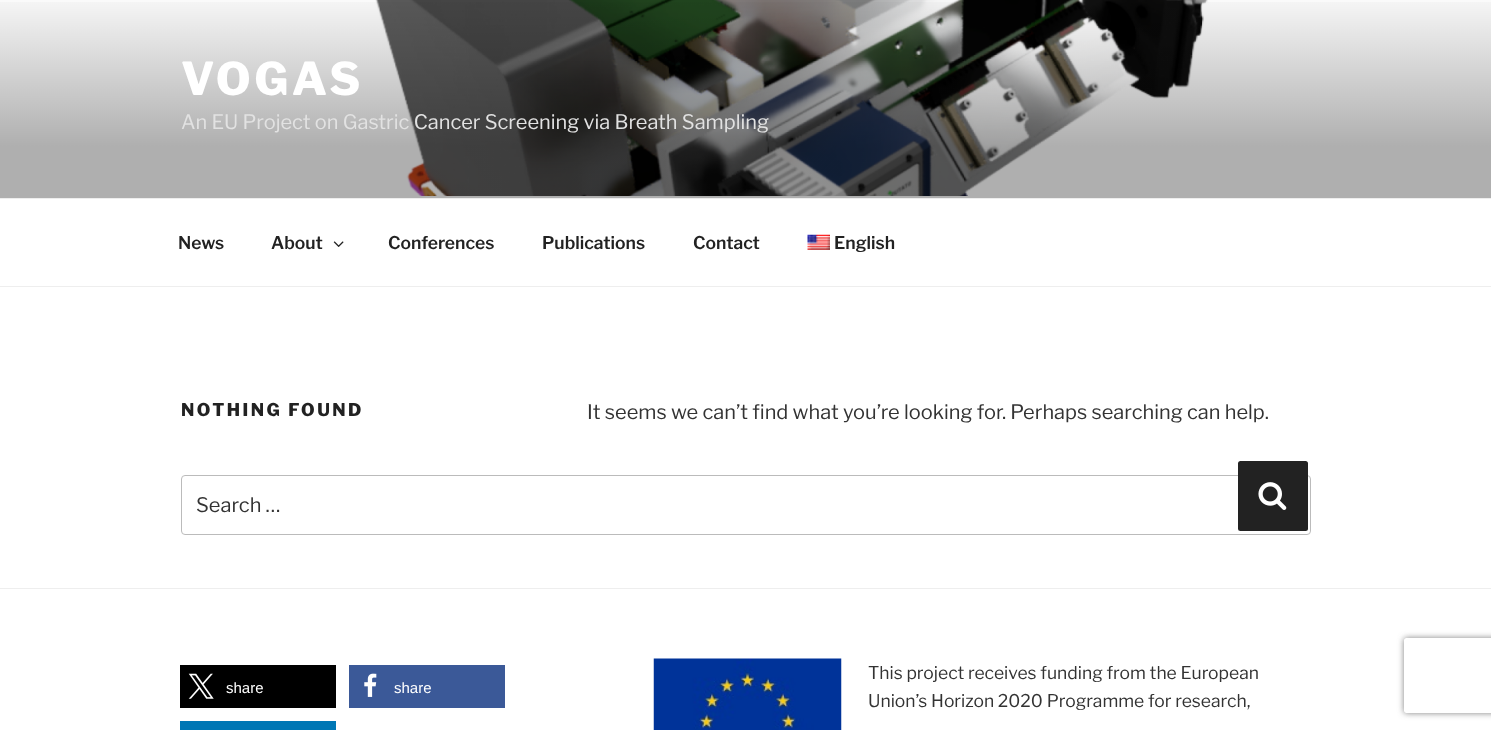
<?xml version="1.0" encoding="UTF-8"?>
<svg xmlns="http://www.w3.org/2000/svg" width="1491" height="730">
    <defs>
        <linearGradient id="g1" gradientUnits="userSpaceOnUse" x1="746" y1="-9" x2="746" y2="198"><stop offset="0" stop-color="#000000" stop-opacity="0"/><stop offset="0.75" stop-color="#000000" stop-opacity="0.3"/><stop offset="1" stop-color="#000000" stop-opacity="0.3"/></linearGradient>
        <clipPath id="clip1"><path d="M 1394 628 H 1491 V 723 H 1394 Z M 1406.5 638 H 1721.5 C 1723 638 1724 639 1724 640.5 V 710.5 C 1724 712 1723 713 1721.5 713 H 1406.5 C 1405 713 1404 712 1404 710.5 V 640.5 C 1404 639 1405 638 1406.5 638 Z" clip-rule="evenodd"/></clipPath>
        <filter id="blur1" x="-50%" y="-200%" width="200%" height="500%"><feGaussianBlur stdDeviation="3"/></filter>
    </defs>
    <rect width="100%" height="100%" fill="#FFFFFF"/>
    <rect x="0" y="0" width="1491" height="198" fill="#FAFAFA"/>
    <image x="375" y="0" width="833" height="196" href="img_01.png"/>
    <rect x="0" y="2" width="1491" height="196" fill="url(#g1)"/>
    <text x="181" y="95" font-family="Libre Franklin" font-size="45" font-weight="100" letter-spacing="3.5" fill="#FFFFFF">VOGAS</text>
    <text x="181" y="129" font-family="'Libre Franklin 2'" font-size="20" font-weight="100" fill="#E2E2E2">An EU Project on Gastric Cancer Screening via Breath Sampling</text>
    <rect x="0" y="198" width="1491" height="1" fill="#EEEEEE"/>
    <rect x="0" y="286" width="1491" height="1" fill="#EEEEEE"/>
    <text x="178" y="249" font-family="'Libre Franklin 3'" font-size="17.5" font-weight="100" fill="#222222">News</text>
    <text x="271" y="249" font-family="'Libre Franklin 3'" font-size="17.5" font-weight="100" fill="#222222">About</text>
    <image x="333" y="241" width="11" height="6" href="img_02.png"/>
    <text x="388" y="249" font-family="'Libre Franklin 3'" font-size="17.5" font-weight="100" fill="#222222">Conferences</text>
    <text x="542" y="249" font-family="'Libre Franklin 3'" font-size="17.5" font-weight="100" fill="#222222">Publications</text>
    <text x="693" y="249" font-family="'Libre Franklin 3'" font-size="17.5" font-weight="100" fill="#222222">Contact</text>
    <image x="807" y="234" width="23" height="16" href="img_03.png"/>
    <text x="834" y="249" font-family="'Libre Franklin 3'" font-size="17.5" font-weight="100" fill="#222222">English</text>
    <text x="181" y="416" font-family="Libre Franklin" font-size="17.5" font-weight="100" letter-spacing="2.5" fill="#222222">NOTHING FOUND</text>
    <text x="587" y="419" font-family="'Libre Franklin 2'" font-size="20" font-weight="100" fill="#333333">It seems we can’t find what you’re looking for. Perhaps searching can help.</text>
    <rect x="181.5" y="475.5" width="1129" height="59" rx="3.5" fill="none" stroke="#BBBBBB"/>
    <text x="196" y="512" font-family="'Libre Franklin 2'" font-size="20" font-weight="100" fill="#333333">Search …</text>
    <rect x="1238" y="461" width="70" height="70" rx="2.5" fill="#222222"/>
    <image x="1258" y="482" width="29" height="28" href="img_04.png"/>
    <rect x="0" y="588" width="1491" height="1" fill="#EEEEEE"/>
    <rect x="180" y="665" width="156" height="43" fill="#000000"/>
    <image x="188" y="673" width="26" height="26" href="img_05.png"/>
    <text x="226" y="693" font-family="Liberation Sans" font-size="15" fill="#FFFFFF">share</text>
    <rect x="349" y="665" width="156" height="43" fill="#3B5998"/>
    <image x="364" y="673" width="13" height="24" href="img_06.png"/>
    <text x="394" y="693" font-family="Liberation Sans" font-size="15" fill="#FFFFFF">share</text>
    <rect x="180" y="721" width="156" height="9" fill="#0077B5"/>
    <image x="653" y="658" width="189" height="72" href="img_07.png"/>
    <text font-family="'Libre Franklin 2'" font-size="17.5" font-weight="100" fill="#333333">
        <tspan x="868" y="679">This project receives funding from the European</tspan>
        <tspan x="868" y="707">Union’s Horizon 2020 Programme for research,</tspan>
    </text>
    <g clip-path="url(#clip1)">
        <rect x="1404" y="638" width="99" height="75" rx="2.5" fill="#808080" filter="url(#blur1)"/>
    </g>
</svg>
